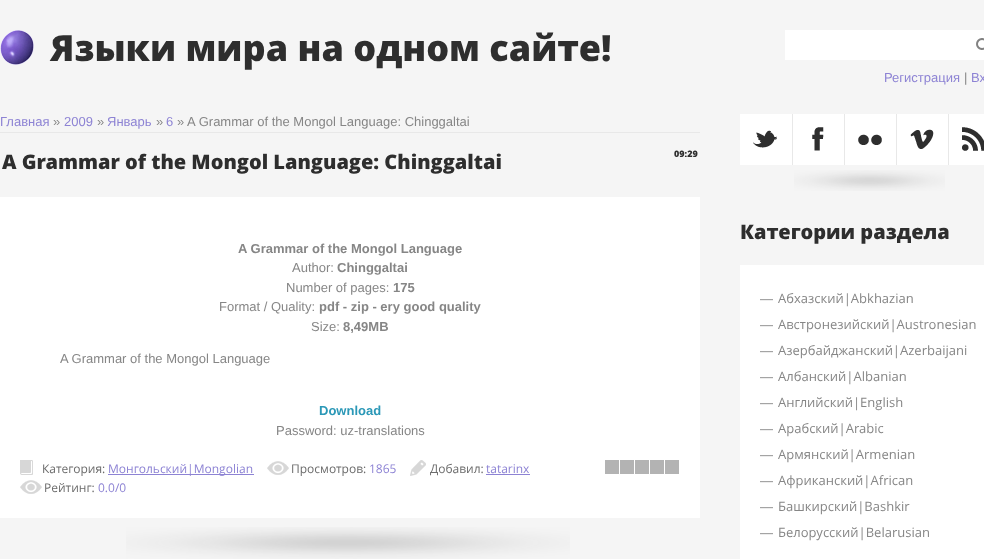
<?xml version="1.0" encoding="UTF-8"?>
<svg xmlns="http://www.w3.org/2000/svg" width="984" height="559">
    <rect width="100%" height="100%" fill="#F5F5F5"/>
    <image x="0" y="30" width="34" height="35" href="img_01.png"/>
    <text x="50" y="61" font-family="Open Sans" font-size="36" font-weight="800" fill="#2E2E2E">Языки мира на одном сайте!</text>
    <rect x="785" y="30" width="199" height="30" fill="#FFFFFF"/>
    <image x="976" y="38" width="8" height="12" href="img_02.png"/>
    <text x="884" y="82" font-family="Liberation Sans" font-size="13" fill="#8D83D4">Регистрация</text>
    <text x="964" y="82" font-family="Liberation Sans" font-size="13" fill="#868686">|</text>
    <text x="971" y="82" font-family="Liberation Sans" font-size="13" fill="#8D83D4">Вх</text>
    <text x="0" y="126" font-family="Liberation Sans" font-size="13" fill="#8D83D4">Главная</text>
    <text x="53" y="126" font-family="Liberation Sans" font-size="13" fill="#868686">»</text>
    <text x="64" y="126" font-family="Liberation Sans" font-size="13" fill="#8D83D4">2009</text>
    <text x="97" y="126" font-family="Liberation Sans" font-size="13" fill="#868686">»</text>
    <text x="107" y="126" font-family="Liberation Sans" font-size="13" fill="#8D83D4">Январь</text>
    <text x="156" y="126" font-family="Liberation Sans" font-size="13" fill="#868686">»</text>
    <text x="166" y="126" font-family="Liberation Sans" font-size="13" fill="#8D83D4">6</text>
    <text x="177" y="126" font-family="Liberation Sans" font-size="13" fill="#868686">» A Grammar of the Mongol Language: Chinggaltai</text>
    <rect x="0" y="132" width="700" height="1" fill="#E8E8E8"/>
    <image x="126" y="527" width="444" height="32" href="img_03.png"/>
    <text x="2" y="169" font-family="Open Sans" font-size="20" font-weight="800" fill="#2E2E2E">A Grammar of the Mongol Language: Chinggaltai</text>
    <text x="674" y="157" font-family="Open Sans" font-size="9" font-weight="800" fill="#2E2E2E">09:29</text>
    <rect x="0" y="197" width="700" height="321" fill="#FFFFFF"/>
    <text x="238" y="253" font-family="Liberation Sans" font-size="13" font-weight="700" fill="#868686">A Grammar of the Mongol Language</text>
    <text x="292" y="272" font-family="Liberation Sans" font-size="13" fill="#868686">Author:</text>
    <text x="337" y="272" font-family="Liberation Sans" font-size="13" font-weight="700" fill="#868686">Chinggaltai</text>
    <text x="286" y="292" font-family="Liberation Sans" font-size="13" fill="#868686">Number of pages:</text>
    <text x="393" y="292" font-family="Liberation Sans" font-size="13" font-weight="700" fill="#868686">175</text>
    <text x="219" y="311" font-family="Liberation Sans" font-size="13" fill="#868686">Format / Quality:</text>
    <text x="319" y="311" font-family="Liberation Sans" font-size="13" font-weight="700" fill="#868686">pdf - zip - ery good quality</text>
    <text x="311" y="331" font-family="Liberation Sans" font-size="13" fill="#868686">Size:</text>
    <text x="343" y="331" font-family="Liberation Sans" font-size="13" font-weight="700" fill="#868686">8,49MB</text>
    <text x="60" y="363" font-family="Liberation Sans" font-size="13" fill="#868686">A Grammar of the Mongol Language</text>
    <text x="319" y="415" font-family="Liberation Sans" font-size="13" font-weight="700" fill="#2B98B7">Download</text>
    <text x="276" y="435" font-family="Liberation Sans" font-size="13" fill="#868686">Password: uz-translations</text>
    <image x="20" y="460" width="13" height="15" href="img_04.png"/>
    <text x="42" y="473" font-family="Open Sans" font-size="12" fill="#6C6C6C">Категория:</text>
    <rect x="108" y="474" width="146" height="1" fill="#8D83D4"/>
    <text x="108" y="473" font-family="Open Sans" font-size="12" fill="#8D83D4">Монгольский|Mongolian</text>
    <image x="267" y="461" width="22" height="14" href="img_05.png"/>
    <text x="291" y="473" font-family="Open Sans" font-size="12" fill="#6C6C6C">Просмотров:</text>
    <text x="369" y="473" font-family="Open Sans" font-size="12" fill="#8D83D4">1865</text>
    <image x="410" y="460" width="16" height="16" href="img_06.png"/>
    <text x="430" y="473" font-family="Open Sans" font-size="12" fill="#6C6C6C">Добавил:</text>
    <text x="486" y="473" font-family="Open Sans" font-size="12" fill="#8D83D4">tatarinx</text>
    <rect x="486" y="474" width="44" height="1" fill="#8D83D4"/>
    <image x="605" y="460" width="74" height="14" href="img_07.png"/>
    <image x="20" y="480" width="22" height="14" href="img_05.png"/>
    <text x="44" y="492" font-family="Open Sans" font-size="12" fill="#6C6C6C">Рейтинг:</text>
    <text x="98" y="492" font-family="Open Sans" font-size="12" fill="#8D83D4">0.0/0</text>
    <image x="794" y="170" width="151" height="21" href="img_08.png"/>
    <rect x="740" y="114" width="52" height="51" fill="#FFFFFF"/>
    <image x="753" y="130" width="24" height="18" href="img_09.png"/>
    <rect x="793" y="114" width="51" height="51" fill="#FFFFFF"/>
    <image x="812" y="127" width="12" height="24" href="img_10.png"/>
    <rect x="792" y="114" width="1" height="51" fill="#E8E8E8"/>
    <rect x="845" y="114" width="51" height="51" fill="#FFFFFF"/>
    <image x="858" y="134" width="24" height="11" href="img_11.png"/>
    <rect x="844" y="114" width="1" height="51" fill="#E8E8E8"/>
    <rect x="897" y="114" width="51" height="51" fill="#FFFFFF"/>
    <image x="910" y="129" width="24" height="20" href="img_12.png"/>
    <rect x="896" y="114" width="1" height="51" fill="#E8E8E8"/>
    <rect x="949" y="114" width="35" height="51" fill="#FFFFFF"/>
    <image x="962" y="127" width="22" height="24" href="img_13.png"/>
    <rect x="948" y="114" width="1" height="51" fill="#E8E8E8"/>
    <text x="740" y="239" font-family="Open Sans" font-size="20" font-weight="800" fill="#2E2E2E">Категории раздела</text>
    <rect x="740" y="265" width="244" height="294" fill="#FFFFFF"/>
    <text x="760" y="303" font-family="Liberation Sans" font-size="13" fill="#868686">—</text>
    <text x="778" y="303" font-family="Open Sans" font-size="13" fill="#868686">Абхазский|Abkhazian</text>
    <text x="760" y="329" font-family="Liberation Sans" font-size="13" fill="#868686">—</text>
    <text x="778" y="329" font-family="Open Sans" font-size="13" fill="#868686">Австронезийский|Austronesian</text>
    <text x="760" y="355" font-family="Liberation Sans" font-size="13" fill="#868686">—</text>
    <text x="778" y="355" font-family="Open Sans" font-size="13" fill="#868686">Азербайджанский|Azerbaijani</text>
    <text x="760" y="381" font-family="Liberation Sans" font-size="13" fill="#868686">—</text>
    <text x="778" y="381" font-family="Open Sans" font-size="13" fill="#868686">Албанский|Albanian</text>
    <text x="760" y="407" font-family="Liberation Sans" font-size="13" fill="#868686">—</text>
    <text x="778" y="407" font-family="Open Sans" font-size="13" fill="#868686">Английский|English</text>
    <text x="760" y="433" font-family="Liberation Sans" font-size="13" fill="#868686">—</text>
    <text x="778" y="433" font-family="Open Sans" font-size="13" fill="#868686">Арабский|Arabic</text>
    <text x="760" y="459" font-family="Liberation Sans" font-size="13" fill="#868686">—</text>
    <text x="778" y="459" font-family="Open Sans" font-size="13" fill="#868686">Армянский|Armenian</text>
    <text x="760" y="485" font-family="Liberation Sans" font-size="13" fill="#868686">—</text>
    <text x="778" y="485" font-family="Open Sans" font-size="13" fill="#868686">Африканский|African</text>
    <text x="760" y="511" font-family="Liberation Sans" font-size="13" fill="#868686">—</text>
    <text x="778" y="511" font-family="Open Sans" font-size="13" fill="#868686">Башкирский|Bashkir</text>
    <text x="760" y="537" font-family="Liberation Sans" font-size="13" fill="#868686">—</text>
    <text x="778" y="537" font-family="Open Sans" font-size="13" fill="#868686">Белорусский|Belarusian</text>
</svg>
